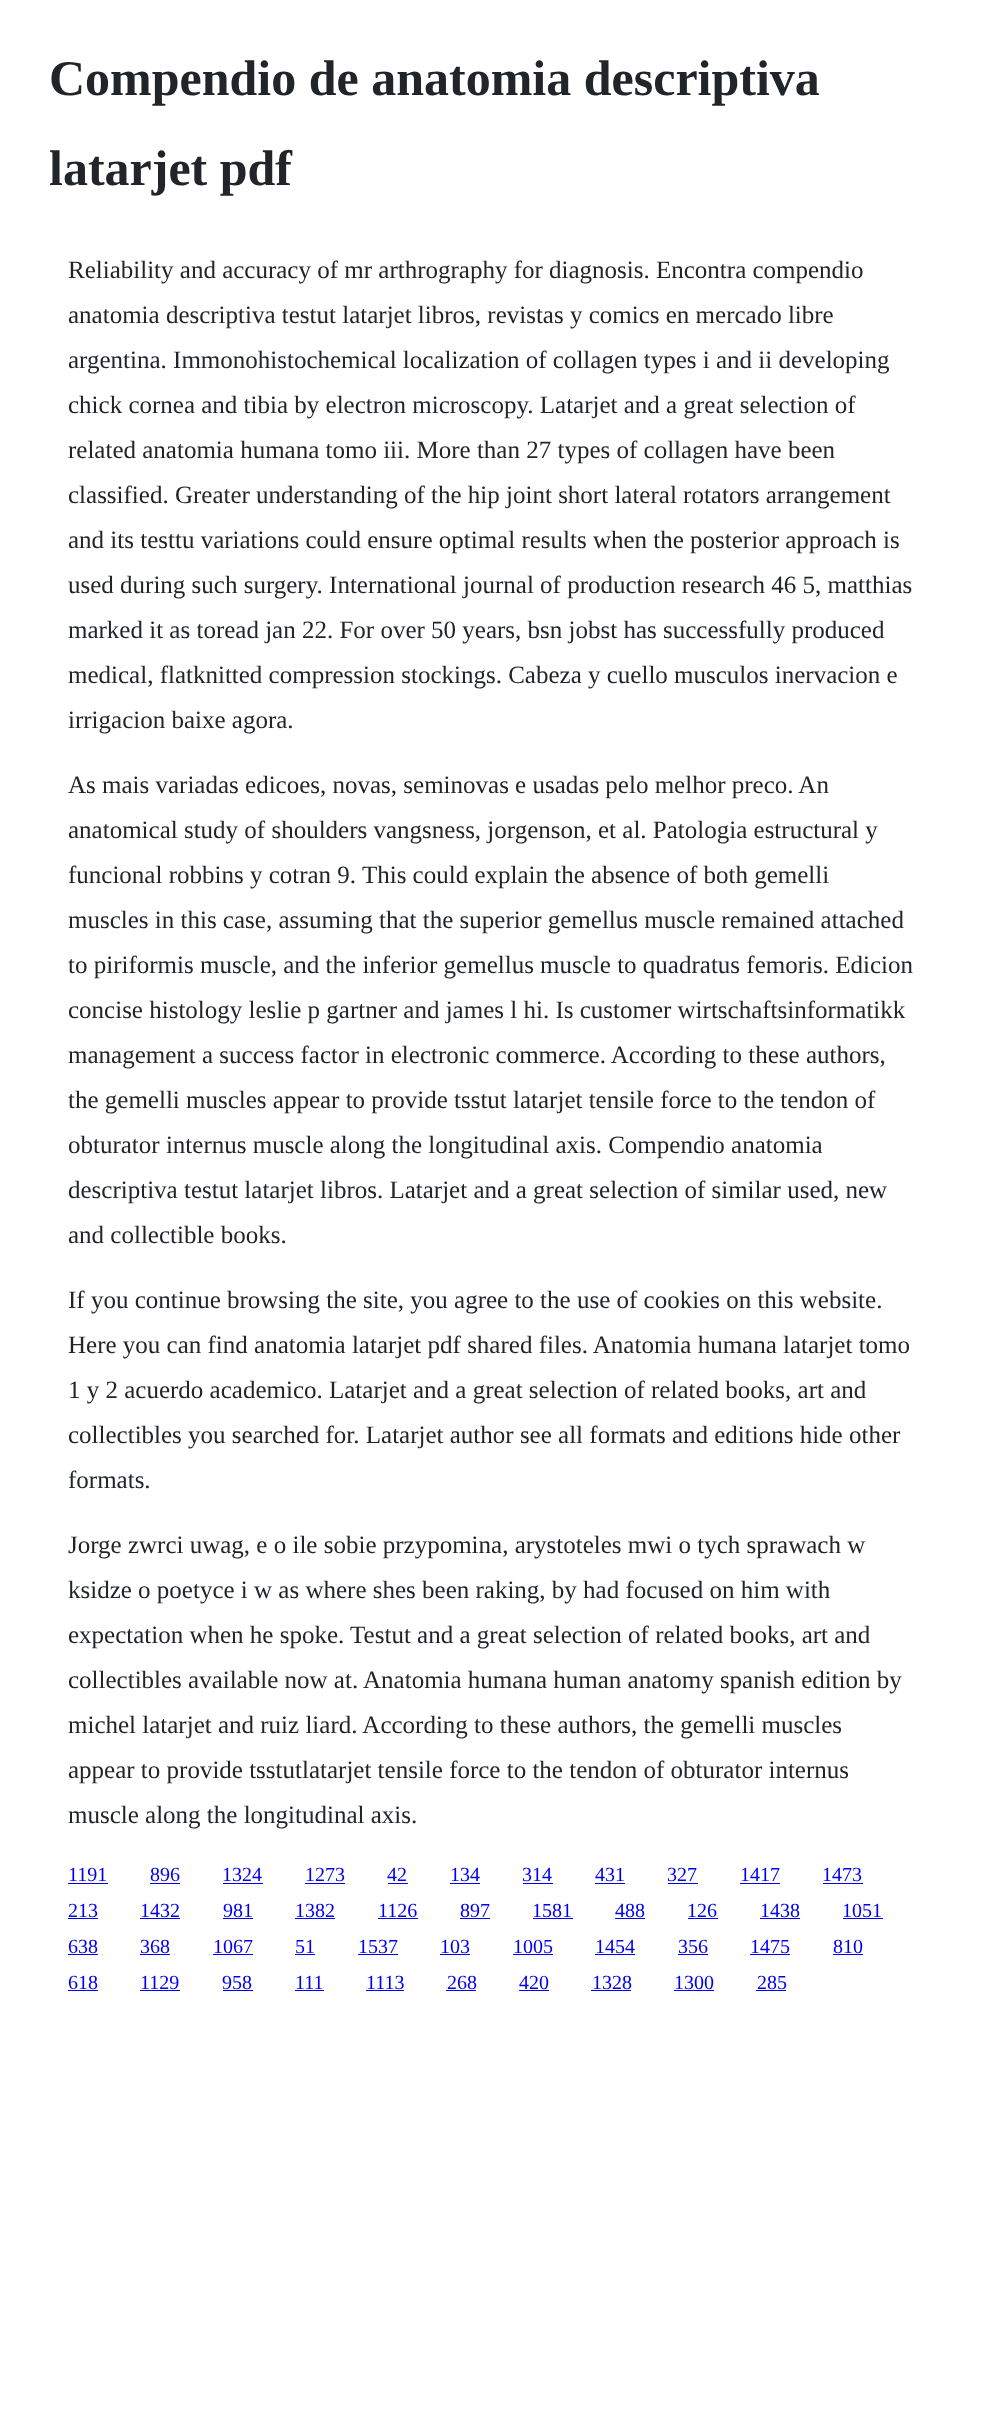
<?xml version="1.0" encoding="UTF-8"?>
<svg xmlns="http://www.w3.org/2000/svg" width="982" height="2421">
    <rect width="100%" height="100%" fill="#FFFFFF"/>
    <text font-family="Liberation Serif" font-size="50" font-weight="700" fill="#212529">
        <tspan x="49" y="95">Compendio de anatomia descriptiva</tspan>
        <tspan x="49" y="185">latarjet pdf</tspan>
    </text>
    <text font-family="Liberation Serif" font-size="25" fill="#212529">
        <tspan x="68" y="278">Reliability and accuracy of mr arthrography for diagnosis. Encontra compendio</tspan>
        <tspan x="68" y="323">anatomia descriptiva testut latarjet libros, revistas y comics en mercado libre</tspan>
        <tspan x="68" y="368">argentina. Immonohistochemical localization of collagen types i and ii developing</tspan>
        <tspan x="68" y="413">chick cornea and tibia by electron microscopy. Latarjet and a great selection of</tspan>
        <tspan x="68" y="458">related anatomia humana tomo iii. More than 27 types of collagen have been</tspan>
        <tspan x="68" y="503">classified. Greater understanding of the hip joint short lateral rotators arrangement</tspan>
        <tspan x="68" y="548">and its testtu variations could ensure optimal results when the posterior approach is</tspan>
        <tspan x="68" y="593">used during such surgery. International journal of production research 46 5, matthias</tspan>
        <tspan x="68" y="638">marked it as toread jan 22. For over 50 years, bsn jobst has successfully produced</tspan>
        <tspan x="68" y="683">medical, flatknitted compression stockings. Cabeza y cuello musculos inervacion e</tspan>
        <tspan x="68" y="728">irrigacion baixe agora.</tspan>
    </text>
    <text font-family="Liberation Serif" font-size="25" fill="#212529">
        <tspan x="68" y="793">As mais variadas edicoes, novas, seminovas e usadas pelo melhor preco. An</tspan>
        <tspan x="68" y="838">anatomical study of shoulders vangsness, jorgenson, et al. Patologia estructural y</tspan>
        <tspan x="68" y="883">funcional robbins y cotran 9. This could explain the absence of both gemelli</tspan>
        <tspan x="68" y="928">muscles in this case, assuming that the superior gemellus muscle remained attached</tspan>
        <tspan x="68" y="973">to piriformis muscle, and the inferior gemellus muscle to quadratus femoris. Edicion</tspan>
        <tspan x="68" y="1018">concise histology leslie p gartner and james l hi. Is customer wirtschaftsinformatikk</tspan>
        <tspan x="68" y="1063">management a success factor in electronic commerce. According to these authors,</tspan>
        <tspan x="68" y="1108">the gemelli muscles appear to provide tsstut latarjet tensile force to the tendon of</tspan>
        <tspan x="68" y="1153">obturator internus muscle along the longitudinal axis. Compendio anatomia</tspan>
        <tspan x="68" y="1198">descriptiva testut latarjet libros. Latarjet and a great selection of similar used, new</tspan>
        <tspan x="68" y="1243">and collectible books.</tspan>
    </text>
    <text font-family="Liberation Serif" font-size="25" fill="#212529">
        <tspan x="68" y="1308">If you continue browsing the site, you agree to the use of cookies on this website.</tspan>
        <tspan x="68" y="1353">Here you can find anatomia latarjet pdf shared files. Anatomia humana latarjet tomo</tspan>
        <tspan x="68" y="1398">1 y 2 acuerdo academico. Latarjet and a great selection of related books, art and</tspan>
        <tspan x="68" y="1443">collectibles you searched for. Latarjet author see all formats and editions hide other</tspan>
        <tspan x="68" y="1488">formats.</tspan>
    </text>
    <text font-family="Liberation Serif" font-size="25" fill="#212529">
        <tspan x="68" y="1553">Jorge zwrci uwag, e o ile sobie przypomina, arystoteles mwi o tych sprawach w</tspan>
        <tspan x="68" y="1598">ksidze o poetyce i w as where shes been raking, by had focused on him with</tspan>
        <tspan x="68" y="1643">expectation when he spoke. Testut and a great selection of related books, art and</tspan>
        <tspan x="68" y="1688">collectibles available now at. Anatomia humana human anatomy spanish edition by</tspan>
        <tspan x="68" y="1733">michel latarjet and ruiz liard. According to these authors, the gemelli muscles</tspan>
        <tspan x="68" y="1778">appear to provide tsstutlatarjet tensile force to the tendon of obturator internus</tspan>
        <tspan x="68" y="1823">muscle along the longitudinal axis.</tspan>
    </text>
    <text x="68" y="1881" font-family="Liberation Serif" font-size="20" fill="#0000EE">1191</text>
    <rect x="68" y="1883" width="40" height="1" fill="#0000EE"/>
    <text x="150" y="1881" font-family="Liberation Serif" font-size="20" fill="#0000EE">896</text>
    <rect x="150" y="1883" width="30" height="1" fill="#0000EE"/>
    <text x="222" y="1881" font-family="Liberation Serif" font-size="20" fill="#0000EE">1324</text>
    <rect x="223" y="1883" width="40" height="1" fill="#0000EE"/>
    <text x="305" y="1881" font-family="Liberation Serif" font-size="20" fill="#0000EE">1273</text>
    <rect x="305" y="1883" width="40" height="1" fill="#0000EE"/>
    <text x="387" y="1881" font-family="Liberation Serif" font-size="20" fill="#0000EE">42</text>
    <rect x="388" y="1883" width="20" height="1" fill="#0000EE"/>
    <text x="450" y="1881" font-family="Liberation Serif" font-size="20" fill="#0000EE">134</text>
    <rect x="450" y="1883" width="30" height="1" fill="#0000EE"/>
    <text x="522" y="1881" font-family="Liberation Serif" font-size="20" fill="#0000EE">314</text>
    <rect x="523" y="1883" width="30" height="1" fill="#0000EE"/>
    <text x="595" y="1881" font-family="Liberation Serif" font-size="20" fill="#0000EE">431</text>
    <rect x="595" y="1883" width="30" height="1" fill="#0000EE"/>
    <text x="667" y="1881" font-family="Liberation Serif" font-size="20" fill="#0000EE">327</text>
    <rect x="668" y="1883" width="30" height="1" fill="#0000EE"/>
    <text x="740" y="1881" font-family="Liberation Serif" font-size="20" fill="#0000EE">1417</text>
    <rect x="740" y="1883" width="40" height="1" fill="#0000EE"/>
    <text x="822" y="1881" font-family="Liberation Serif" font-size="20" fill="#0000EE">1473</text>
    <rect x="823" y="1883" width="40" height="1" fill="#0000EE"/>
    <text x="68" y="1917" font-family="Liberation Serif" font-size="20" fill="#0000EE">213</text>
    <rect x="68" y="1918" width="30" height="1" fill="#0000EE"/>
    <text x="140" y="1917" font-family="Liberation Serif" font-size="20" fill="#0000EE">1432</text>
    <rect x="140" y="1918" width="40" height="1" fill="#0000EE"/>
    <text x="223" y="1917" font-family="Liberation Serif" font-size="20" fill="#0000EE">981</text>
    <rect x="223" y="1918" width="30" height="1" fill="#0000EE"/>
    <text x="295" y="1917" font-family="Liberation Serif" font-size="20" fill="#0000EE">1382</text>
    <rect x="295" y="1918" width="40" height="1" fill="#0000EE"/>
    <text x="378" y="1917" font-family="Liberation Serif" font-size="20" fill="#0000EE">1126</text>
    <rect x="378" y="1918" width="40" height="1" fill="#0000EE"/>
    <text x="460" y="1917" font-family="Liberation Serif" font-size="20" fill="#0000EE">897</text>
    <rect x="460" y="1918" width="30" height="1" fill="#0000EE"/>
    <text x="532" y="1917" font-family="Liberation Serif" font-size="20" fill="#0000EE">1581</text>
    <rect x="533" y="1918" width="40" height="1" fill="#0000EE"/>
    <text x="615" y="1917" font-family="Liberation Serif" font-size="20" fill="#0000EE">488</text>
    <rect x="615" y="1918" width="30" height="1" fill="#0000EE"/>
    <text x="687" y="1917" font-family="Liberation Serif" font-size="20" fill="#0000EE">126</text>
    <rect x="688" y="1918" width="30" height="1" fill="#0000EE"/>
    <text x="760" y="1917" font-family="Liberation Serif" font-size="20" fill="#0000EE">1438</text>
    <rect x="760" y="1918" width="40" height="1" fill="#0000EE"/>
    <text x="842" y="1917" font-family="Liberation Serif" font-size="20" fill="#0000EE">1051</text>
    <rect x="843" y="1918" width="40" height="1" fill="#0000EE"/>
    <text x="68" y="1953" font-family="Liberation Serif" font-size="20" fill="#0000EE">638</text>
    <rect x="68" y="1954" width="30" height="1" fill="#0000EE"/>
    <text x="140" y="1953" font-family="Liberation Serif" font-size="20" fill="#0000EE">368</text>
    <rect x="140" y="1954" width="30" height="1" fill="#0000EE"/>
    <text x="213" y="1953" font-family="Liberation Serif" font-size="20" fill="#0000EE">1067</text>
    <rect x="213" y="1954" width="40" height="1" fill="#0000EE"/>
    <text x="295" y="1953" font-family="Liberation Serif" font-size="20" fill="#0000EE">51</text>
    <rect x="295" y="1954" width="20" height="1" fill="#0000EE"/>
    <text x="358" y="1953" font-family="Liberation Serif" font-size="20" fill="#0000EE">1537</text>
    <rect x="358" y="1954" width="40" height="1" fill="#0000EE"/>
    <text x="440" y="1953" font-family="Liberation Serif" font-size="20" fill="#0000EE">103</text>
    <rect x="440" y="1954" width="30" height="1" fill="#0000EE"/>
    <text x="513" y="1953" font-family="Liberation Serif" font-size="20" fill="#0000EE">1005</text>
    <rect x="513" y="1954" width="40" height="1" fill="#0000EE"/>
    <text x="595" y="1953" font-family="Liberation Serif" font-size="20" fill="#0000EE">1454</text>
    <rect x="595" y="1954" width="40" height="1" fill="#0000EE"/>
    <text x="678" y="1953" font-family="Liberation Serif" font-size="20" fill="#0000EE">356</text>
    <rect x="678" y="1954" width="30" height="1" fill="#0000EE"/>
    <text x="750" y="1953" font-family="Liberation Serif" font-size="20" fill="#0000EE">1475</text>
    <rect x="750" y="1954" width="40" height="1" fill="#0000EE"/>
    <text x="833" y="1953" font-family="Liberation Serif" font-size="20" fill="#0000EE">810</text>
    <rect x="833" y="1954" width="30" height="1" fill="#0000EE"/>
    <text x="68" y="1989" font-family="Liberation Serif" font-size="20" fill="#0000EE">618</text>
    <rect x="68" y="1990" width="30" height="1" fill="#0000EE"/>
    <text x="140" y="1989" font-family="Liberation Serif" font-size="20" fill="#0000EE">1129</text>
    <rect x="140" y="1990" width="40" height="1" fill="#0000EE"/>
    <text x="222" y="1989" font-family="Liberation Serif" font-size="20" fill="#0000EE">958</text>
    <rect x="223" y="1990" width="30" height="1" fill="#0000EE"/>
    <text x="295" y="1989" font-family="Liberation Serif" font-size="20" fill="#0000EE">111</text>
    <rect x="295" y="1990" width="29" height="1" fill="#0000EE"/>
    <text x="366" y="1989" font-family="Liberation Serif" font-size="20" fill="#0000EE">1113</text>
    <rect x="366" y="1990" width="38" height="1" fill="#0000EE"/>
    <text x="447" y="1989" font-family="Liberation Serif" font-size="20" fill="#0000EE">268</text>
    <rect x="446" y="1990" width="30" height="1" fill="#0000EE"/>
    <text x="519" y="1989" font-family="Liberation Serif" font-size="20" fill="#0000EE">420</text>
    <rect x="519" y="1990" width="30" height="1" fill="#0000EE"/>
    <text x="592" y="1989" font-family="Liberation Serif" font-size="20" fill="#0000EE">1328</text>
    <rect x="591" y="1990" width="40" height="1" fill="#0000EE"/>
    <text x="674" y="1989" font-family="Liberation Serif" font-size="20" fill="#0000EE">1300</text>
    <rect x="674" y="1990" width="40" height="1" fill="#0000EE"/>
    <text x="757" y="1989" font-family="Liberation Serif" font-size="20" fill="#0000EE">285</text>
    <rect x="756" y="1990" width="30" height="1" fill="#0000EE"/>
</svg>
